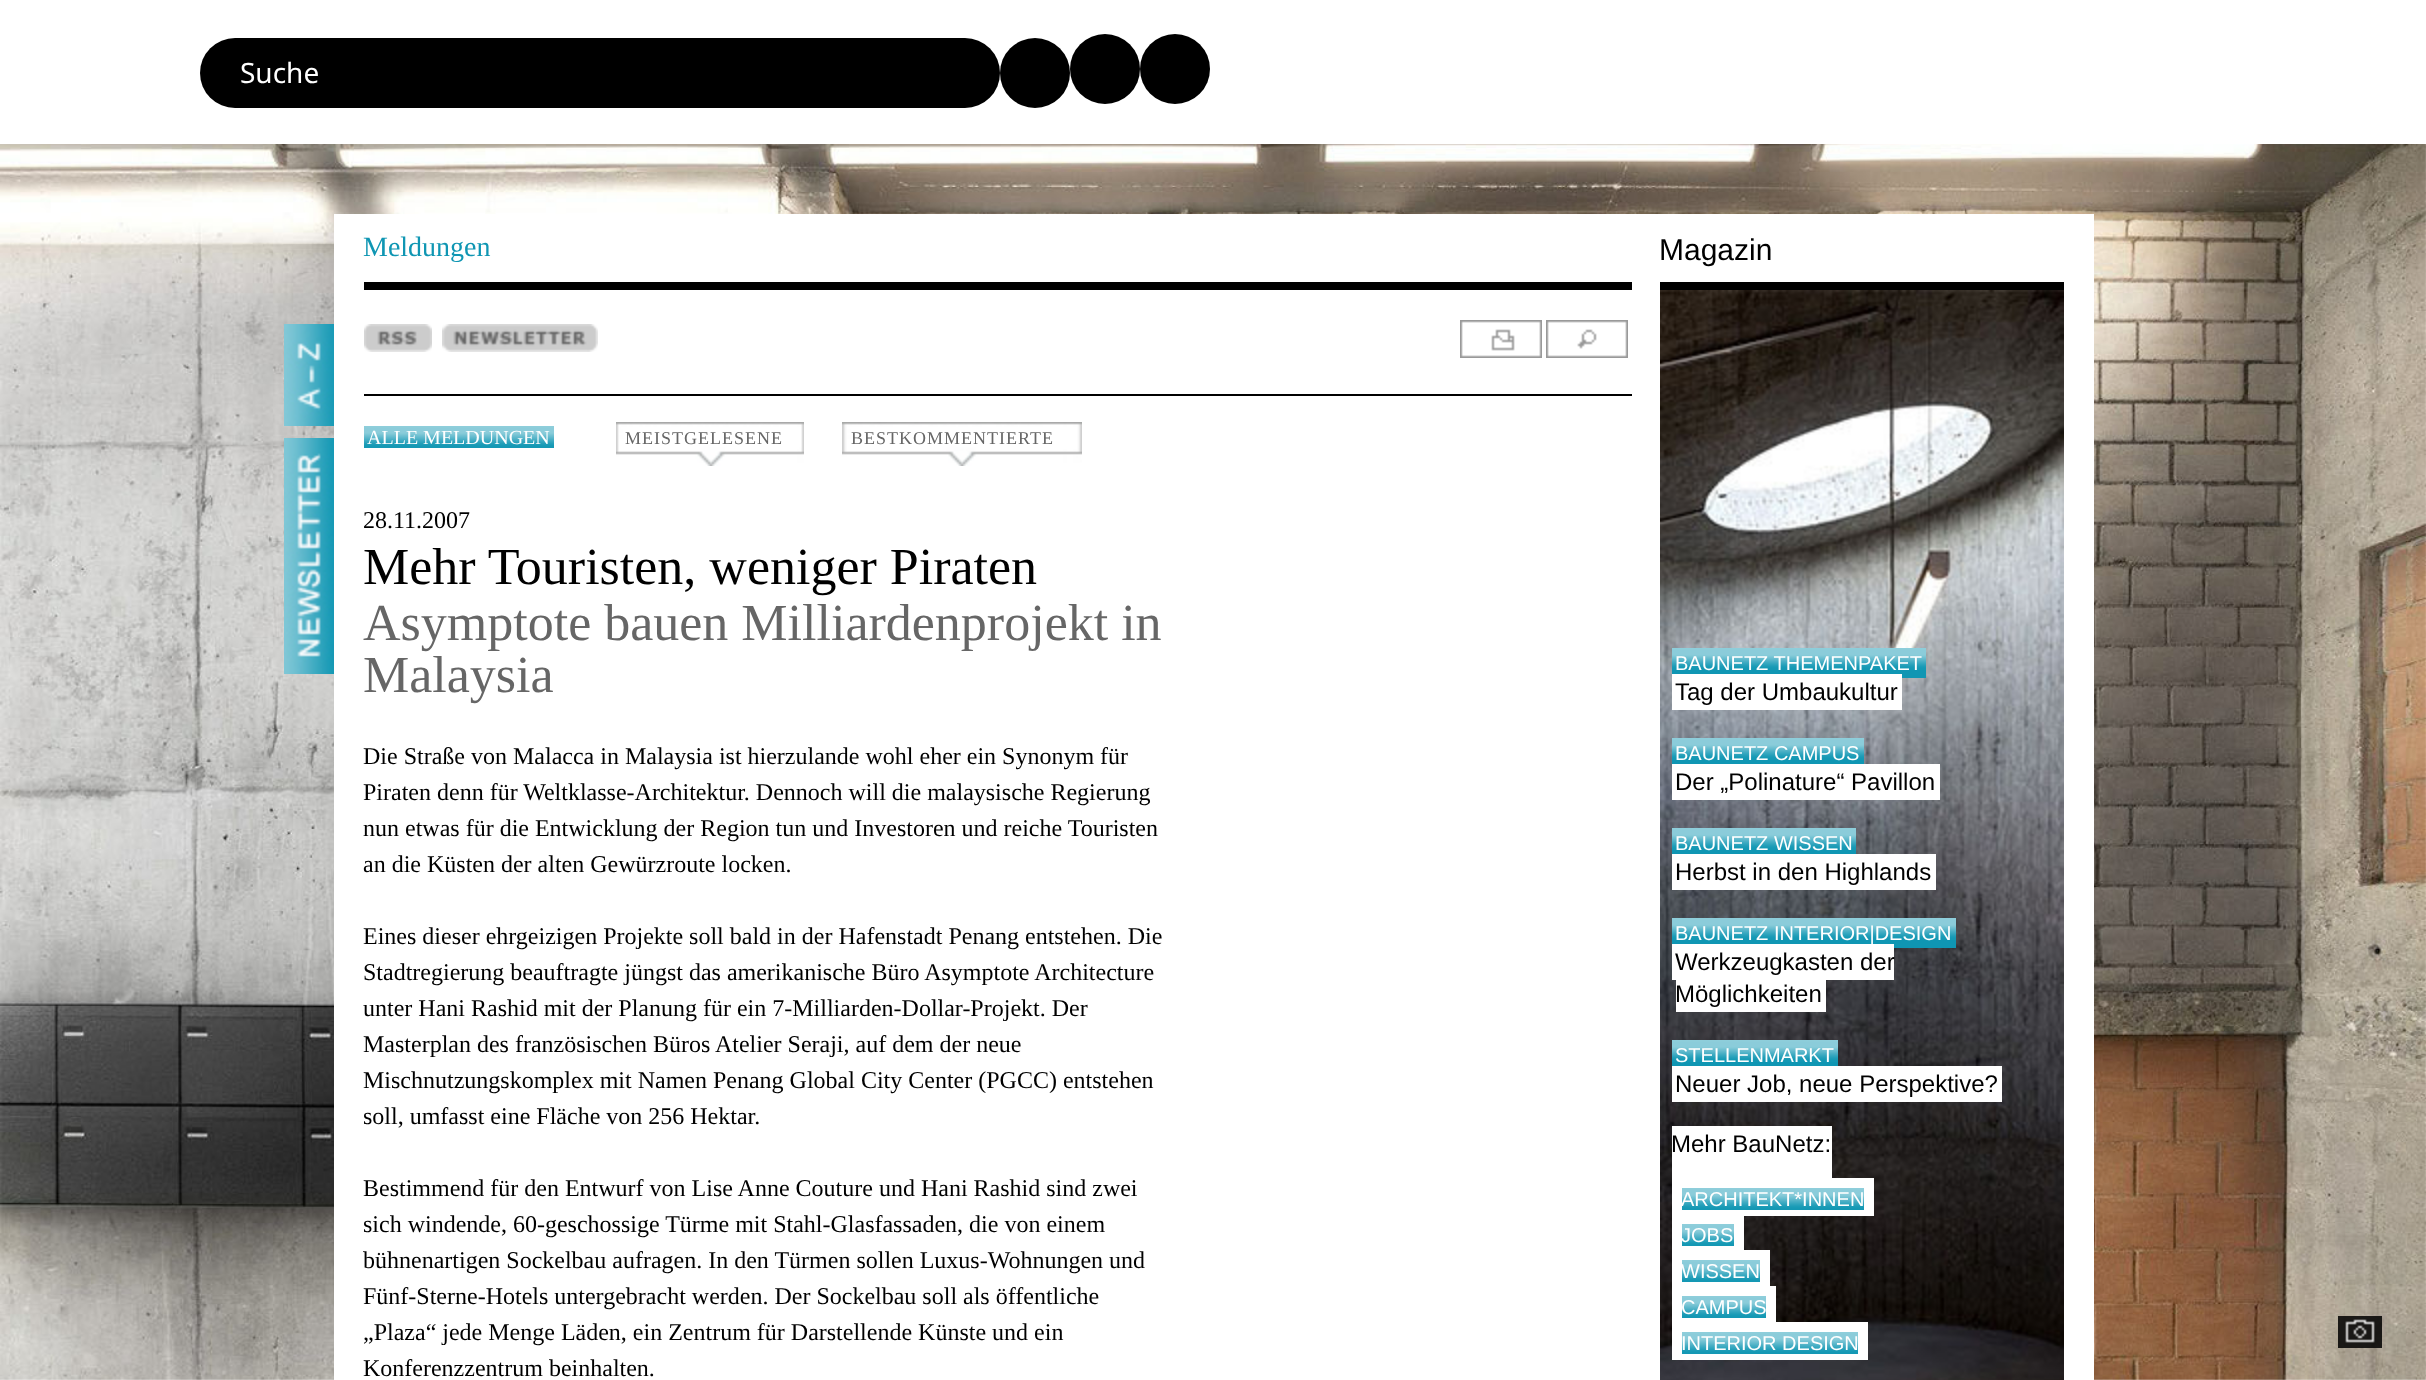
<?xml version="1.0" encoding="UTF-8"?>
<svg xmlns="http://www.w3.org/2000/svg" width="2426" height="1380">
    <rect width="100%" height="100%" fill="#FFFFFF"/>
    <image x="0" y="144" width="2426" height="1236" href="img_01.png"/>
    <rect x="200" y="38" width="800" height="70" rx="35" fill="#000000"/>
    <text x="240" y="83" font-family="Noto Sans" font-size="28" fill="#FFFFFF">Suche</text>
    <circle cx="1035" cy="73" r="35" fill="#000000"/>
    <circle cx="1105" cy="69" r="35" fill="#000000"/>
    <circle cx="1175" cy="69" r="35" fill="#000000"/>
    <rect x="334" y="214" width="1760" height="1166" fill="#FFFFFF"/>
    <text x="363" y="256" font-family="Liberation Serif" font-size="28" fill="#0F96B3">Meldungen</text>
    <text x="1659" y="260" font-family="Liberation Sans" font-size="30" fill="#000000">Magazin</text>
    <rect x="364" y="282" width="1268" height="8" fill="#000000"/>
    <rect x="1660" y="282" width="404" height="8" fill="#000000"/>
    <image x="284" y="324" width="50" height="102" href="img_02.png"/>
    <image x="284" y="438" width="50" height="236" href="img_03.png"/>
    <rect x="364" y="394" width="1268" height="2" fill="#000000"/>
    <image x="364" y="324" width="68" height="28" href="img_04.png"/>
    <image x="442" y="324" width="156" height="28" href="img_05.png"/>
    <image x="1460" y="320" width="82" height="38" href="img_06.png"/>
    <image x="1546" y="320" width="82" height="38" href="img_07.png"/>
    <image x="364" y="426" width="190" height="22" href="img_08.png"/>
    <text x="367" y="444" font-family="Liberation Serif" font-size="20" fill="#FFFFFF">ALLE MELDUNGEN</text>
    <image x="616" y="422" width="188" height="44" href="img_09.png"/>
    <text x="625" y="444" font-family="Liberation Serif" font-size="18" letter-spacing="1" fill="#666666">MEISTGELESENE</text>
    <image x="842" y="422" width="240" height="44" href="img_10.png"/>
    <text x="851" y="444" font-family="Liberation Serif" font-size="18" letter-spacing="1" fill="#666666">BESTKOMMENTIERTE</text>
    <text x="363" y="528" font-family="Liberation Serif" font-size="24" fill="#000000">28.11.2007</text>
    <text x="363" y="584" font-family="Liberation Serif" font-size="52" fill="#000000">Mehr Touristen, weniger Piraten</text>
    <text font-family="Liberation Serif" font-size="52" fill="#666666">
        <tspan x="363" y="640">Asymptote bauen Milliardenprojekt in</tspan>
        <tspan x="363" y="692">Malaysia</tspan>
    </text>
    <text font-family="Liberation Serif" font-size="24" fill="#000000">
        <tspan x="363" y="764">Die Straße von Malacca in Malaysia ist hierzulande wohl eher ein Synonym für</tspan>
        <tspan x="363" y="800">Piraten denn für Weltklasse-Architektur. Dennoch will die malaysische Regierung</tspan>
        <tspan x="363" y="836">nun etwas für die Entwicklung der Region tun und Investoren und reiche Touristen</tspan>
        <tspan x="363" y="872">an die Küsten der alten Gewürzroute locken.</tspan>
    </text>
    <text font-family="Liberation Serif" font-size="24" fill="#000000">
        <tspan x="363" y="944">Eines dieser ehrgeizigen Projekte soll bald in der Hafenstadt Penang entstehen. Die</tspan>
        <tspan x="363" y="980">Stadtregierung beauftragte jüngst das amerikanische Büro Asymptote Architecture</tspan>
        <tspan x="363" y="1016">unter Hani Rashid mit der Planung für ein 7-Milliarden-Dollar-Projekt. Der</tspan>
        <tspan x="363" y="1052">Masterplan des französischen Büros Atelier Seraji, auf dem der neue</tspan>
        <tspan x="363" y="1088">Mischnutzungskomplex mit Namen Penang Global City Center (PGCC) entstehen</tspan>
        <tspan x="363" y="1124">soll, umfasst eine Fläche von 256 Hektar.</tspan>
    </text>
    <text font-family="Liberation Serif" font-size="24" fill="#000000">
        <tspan x="363" y="1196">Bestimmend für den Entwurf von Lise Anne Couture und Hani Rashid sind zwei</tspan>
        <tspan x="363" y="1232">sich windende, 60-geschossige Türme mit Stahl-Glasfassaden, die von einem</tspan>
        <tspan x="363" y="1268">bühnenartigen Sockelbau aufragen. In den Türmen sollen Luxus-Wohnungen und</tspan>
        <tspan x="363" y="1304">Fünf-Sterne-Hotels untergebracht werden. Der Sockelbau soll als öffentliche</tspan>
        <tspan x="363" y="1340">„Plaza“ jede Menge Läden, ein Zentrum für Darstellende Künste und ein</tspan>
        <tspan x="363" y="1376">Konferenzzentrum beinhalten.</tspan>
    </text>
    <image x="1660" y="290" width="404" height="1090" href="img_11.png"/>
    <image x="1672" y="648" width="254" height="22" href="img_12.png"/>
    <rect x="1672" y="670" width="254" height="8" fill="#0F96B3"/>
    <text x="1675" y="670" font-family="Liberation Sans" font-size="20" fill="#FFFFFF">BAUNETZ THEMENPAKET</text>
    <rect x="1672" y="674" width="230" height="36" fill="#FFFFFF"/>
    <text x="1675" y="700" font-family="Liberation Sans" font-size="24" fill="#000000">Tag der Umbaukultur</text>
    <image x="1672" y="738" width="192" height="22" href="img_13.png"/>
    <rect x="1672" y="760" width="192" height="4" fill="#0F96B3"/>
    <text x="1675" y="760" font-family="Liberation Sans" font-size="20" fill="#FFFFFF">BAUNETZ CAMPUS</text>
    <rect x="1672" y="764" width="268" height="36" fill="#FFFFFF"/>
    <text x="1675" y="790" font-family="Liberation Sans" font-size="24" fill="#000000">Der „Polinature“ Pavillon</text>
    <image x="1672" y="828" width="184" height="22" href="img_14.png"/>
    <rect x="1672" y="850" width="184" height="4" fill="#0F96B3"/>
    <text x="1675" y="850" font-family="Liberation Sans" font-size="20" fill="#FFFFFF">BAUNETZ WISSEN</text>
    <rect x="1672" y="854" width="264" height="36" fill="#FFFFFF"/>
    <text x="1675" y="880" font-family="Liberation Sans" font-size="24" fill="#000000">Herbst in den Highlands</text>
    <image x="1672" y="918" width="284" height="22" href="img_15.png"/>
    <rect x="1672" y="940" width="284" height="8" fill="#0F96B3"/>
    <text x="1675" y="940" font-family="Liberation Sans" font-size="20" fill="#FFFFFF">BAUNETZ INTERIOR|DESIGN</text>
    <rect x="1672" y="944" width="222" height="36" fill="#FFFFFF"/>
    <text x="1675" y="970" font-family="Liberation Sans" font-size="24" fill="#000000">Werkzeugkasten der</text>
    <rect x="1676" y="980" width="150" height="32" fill="#FFFFFF"/>
    <text x="1675" y="1002" font-family="Liberation Sans" font-size="24" fill="#000000">Möglichkeiten</text>
    <image x="1672" y="1040" width="166" height="22" href="img_16.png"/>
    <rect x="1672" y="1062" width="166" height="4" fill="#0F96B3"/>
    <text x="1675" y="1062" font-family="Liberation Sans" font-size="20" fill="#FFFFFF">STELLENMARKT</text>
    <rect x="1672" y="1066" width="330" height="36" fill="#FFFFFF"/>
    <text x="1675" y="1092" font-family="Liberation Sans" font-size="24" fill="#000000">Neuer Job, neue Perspektive?</text>
    <rect x="1682" y="1178" width="182" height="10" fill="#FFFFFF"/>
    <rect x="1672" y="1126" width="160" height="54" fill="#FFFFFF"/>
    <text x="1671" y="1152" font-family="Liberation Sans" font-size="24" fill="#000000">Mehr BauNetz:</text>
    <image x="1682" y="1188" width="182" height="22" href="img_17.png"/>
    <rect x="1864" y="1178" width="10" height="32" fill="#FFFFFF"/>
    <rect x="1682" y="1210" width="192" height="6" fill="#FFFFFF"/>
    <rect x="1672" y="1180" width="10" height="180" fill="#FFFFFF"/>
    <text x="1681" y="1206" font-family="Liberation Sans" font-size="20" fill="#FFFFFF">ARCHITEKT*INNEN</text>
    <image x="1682" y="1224" width="52" height="22" href="img_18.png"/>
    <rect x="1682" y="1216" width="52" height="8" fill="#FFFFFF"/>
    <rect x="1734" y="1216" width="10" height="30" fill="#FFFFFF"/>
    <rect x="1682" y="1246" width="62" height="4" fill="#FFFFFF"/>
    <text x="1681" y="1242" font-family="Liberation Sans" font-size="20" fill="#FFFFFF">JOBS</text>
    <image x="1682" y="1260" width="78" height="22" href="img_19.png"/>
    <rect x="1682" y="1250" width="78" height="10" fill="#FFFFFF"/>
    <rect x="1760" y="1250" width="10" height="32" fill="#FFFFFF"/>
    <rect x="1682" y="1282" width="88" height="4" fill="#FFFFFF"/>
    <text x="1681" y="1278" font-family="Liberation Sans" font-size="20" fill="#FFFFFF">WISSEN</text>
    <image x="1682" y="1296" width="84" height="22" href="img_20.png"/>
    <rect x="1682" y="1286" width="84" height="10" fill="#FFFFFF"/>
    <rect x="1766" y="1286" width="10" height="32" fill="#FFFFFF"/>
    <rect x="1682" y="1318" width="94" height="4" fill="#FFFFFF"/>
    <text x="1681" y="1314" font-family="Liberation Sans" font-size="20" fill="#FFFFFF">CAMPUS</text>
    <image x="1682" y="1332" width="176" height="22" href="img_21.png"/>
    <rect x="1682" y="1322" width="176" height="10" fill="#FFFFFF"/>
    <rect x="1858" y="1322" width="10" height="32" fill="#FFFFFF"/>
    <rect x="1682" y="1354" width="186" height="6" fill="#FFFFFF"/>
    <text x="1681" y="1350" font-family="Liberation Sans" font-size="20" fill="#FFFFFF">INTERIOR DESIGN</text>
    <image x="2338" y="1316" width="44" height="32" href="img_22.png"/>
</svg>
